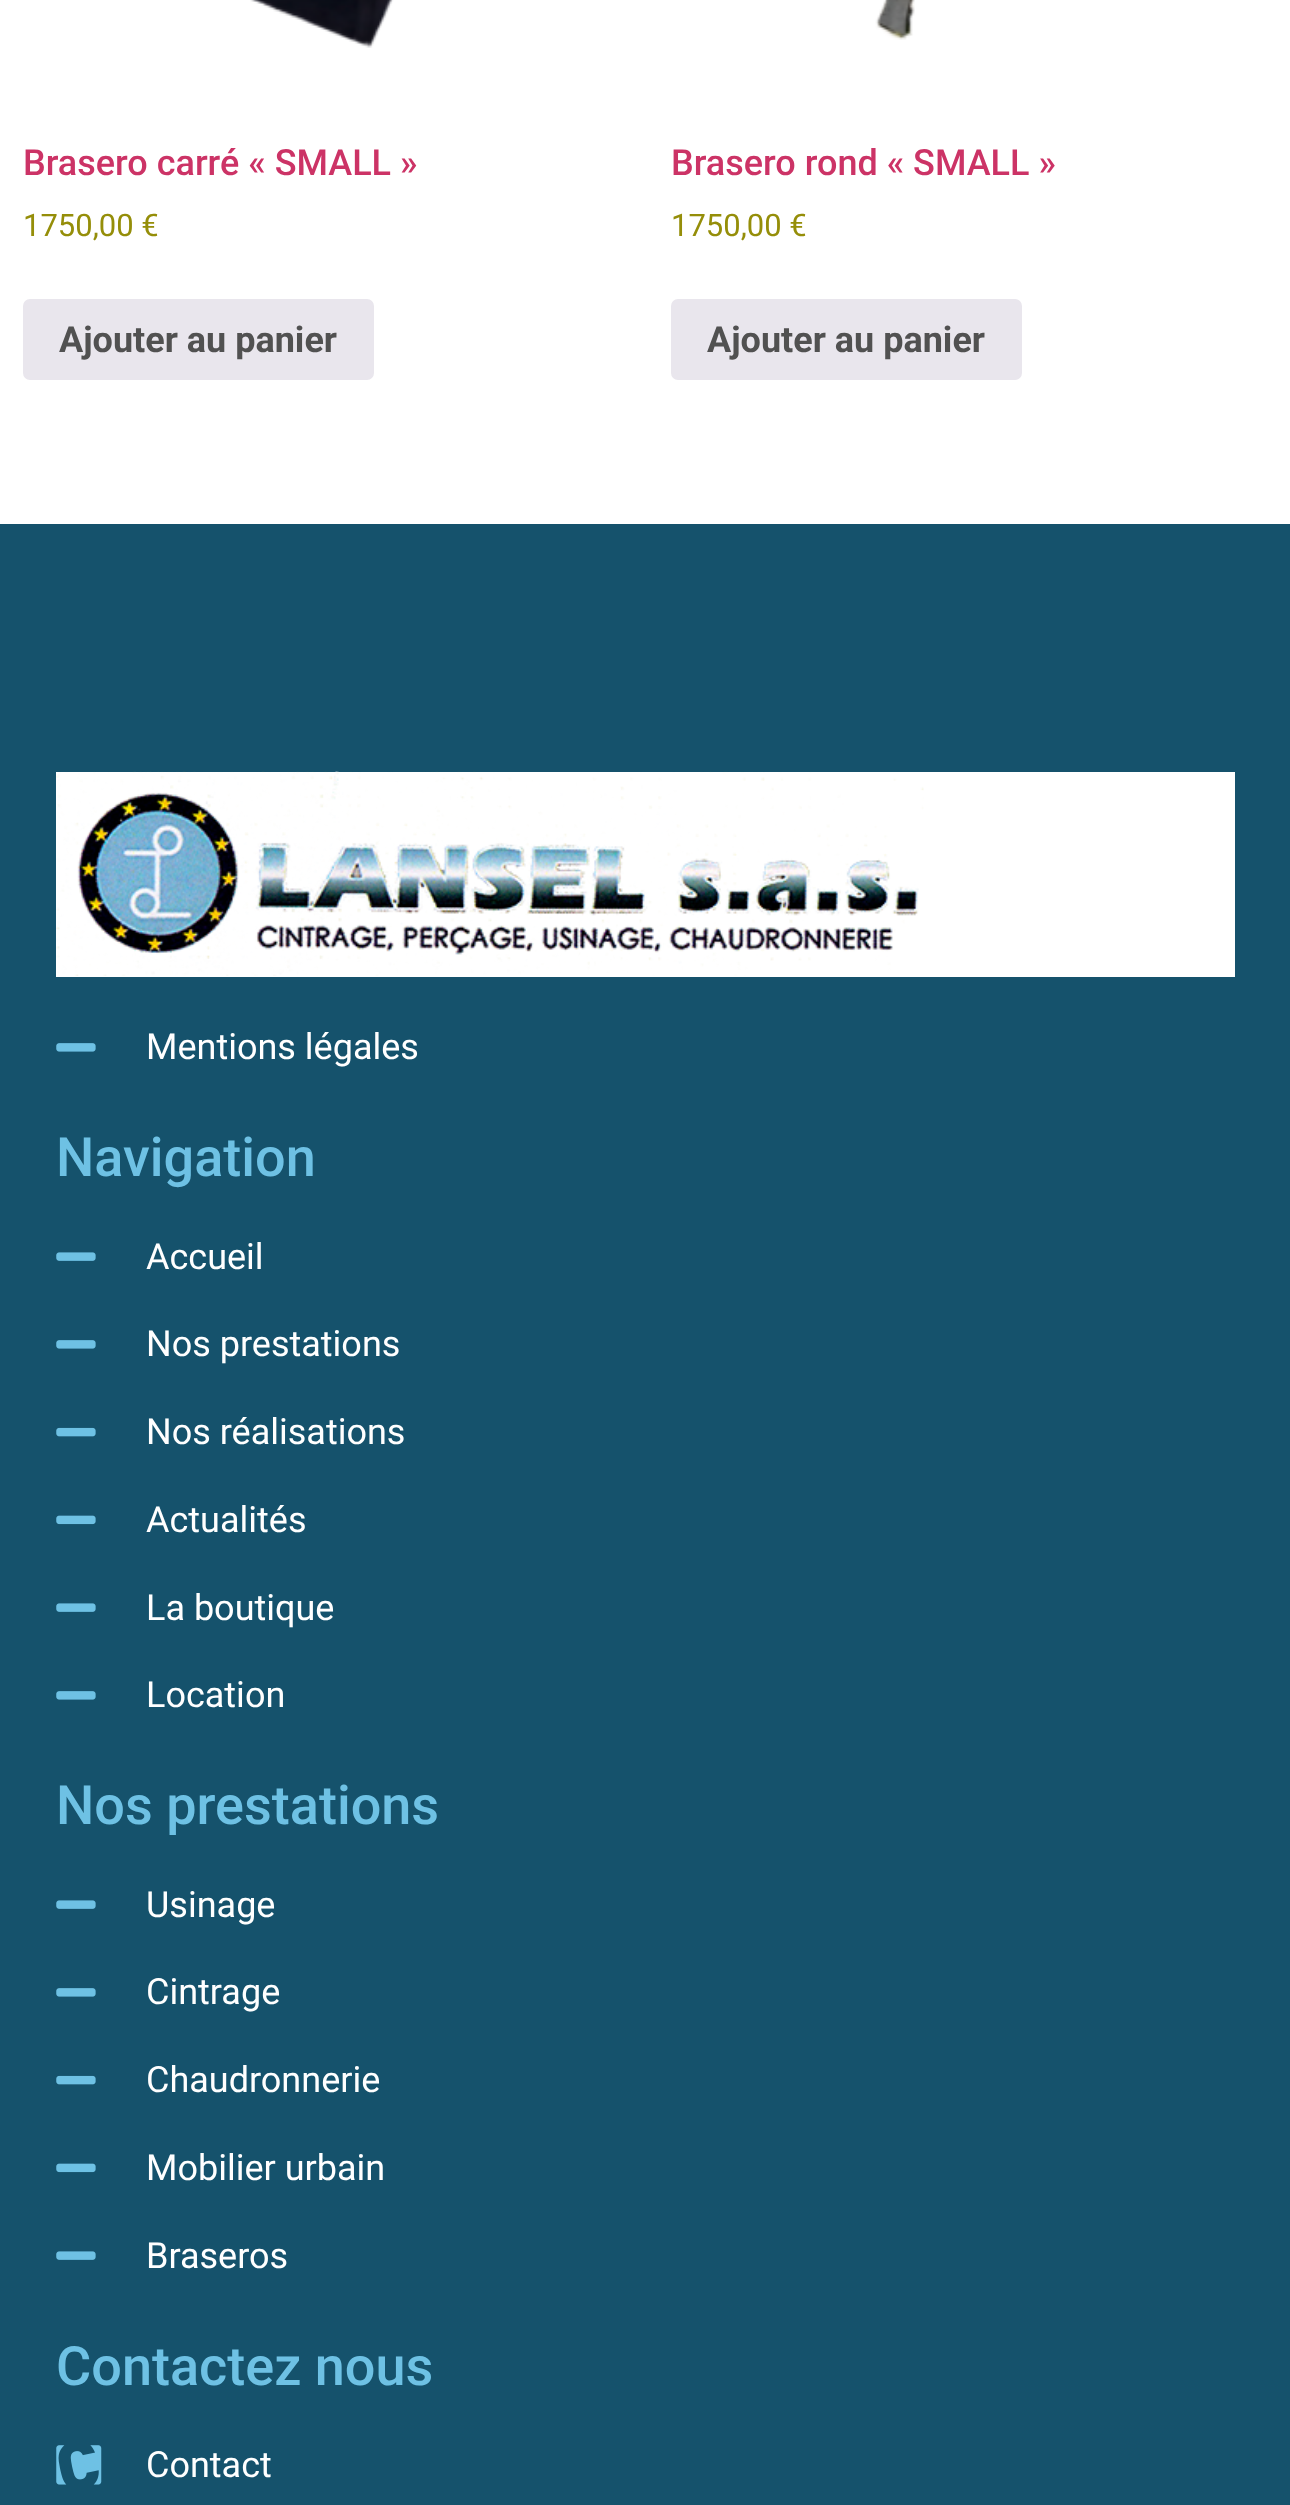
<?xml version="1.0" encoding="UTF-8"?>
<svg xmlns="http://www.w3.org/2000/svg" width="1290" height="2505">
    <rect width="100%" height="100%" fill="#FFFFFF"/>
    <image x="250" y="0" width="144" height="48" href="img_01.png"/>
    <text x="23" y="175" font-family="Roboto" font-size="36" font-weight="500" fill="#CC3366">Brasero carré « SMALL »</text>
    <text x="23" y="236" font-family="Roboto" font-size="31" fill="#958E09">1750,00 €</text>
    <rect x="23" y="299" width="351" height="81" rx="7" fill="#E9E6ED"/>
    <text x="59" y="352" font-family="Roboto" font-size="36" font-weight="700" fill="#515151">Ajouter au panier</text>
    <image x="875" y="0" width="40" height="40" href="img_02.png"/>
    <text x="671" y="175" font-family="Roboto" font-size="36" font-weight="500" fill="#CC3366">Brasero rond « SMALL »</text>
    <text x="671" y="236" font-family="Roboto" font-size="31" fill="#958E09">1750,00 €</text>
    <rect x="671" y="299" width="351" height="81" rx="7" fill="#E9E6ED"/>
    <text x="707" y="352" font-family="Roboto" font-size="36" font-weight="700" fill="#515151">Ajouter au panier</text>
    <rect x="0" y="524" width="1290" height="1981" fill="#15526C"/>
    <rect x="56" y="772" width="1179" height="205" fill="#FFFFFF"/>
    <image x="56" y="771" width="868" height="205" href="img_03.png"/>
    <image x="56" y="1043" width="40" height="9" href="img_04.png"/>
    <text x="146" y="1059" font-family="Roboto" font-size="36" fill="#FFFFFF">Mentions légales</text>
    <text x="56" y="1176" font-family="Roboto" font-size="54" font-weight="500" fill="#6EC1E4">Navigation</text>
    <image x="56" y="1252" width="40" height="9" href="img_05.png"/>
    <text x="146" y="1269" font-family="Roboto" font-size="36" fill="#FFFFFF">Accueil</text>
    <image x="56" y="1340" width="40" height="9" href="img_04.png"/>
    <text x="146" y="1356" font-family="Roboto" font-size="36" fill="#FFFFFF">Nos prestations</text>
    <image x="56" y="1427" width="40" height="10" href="img_06.png"/>
    <text x="146" y="1444" font-family="Roboto" font-size="36" fill="#FFFFFF">Nos réalisations</text>
    <image x="56" y="1515" width="40" height="10" href="img_07.png"/>
    <text x="146" y="1532" font-family="Roboto" font-size="36" fill="#FFFFFF">Actualités</text>
    <image x="56" y="1603" width="40" height="9" href="img_05.png"/>
    <text x="146" y="1620" font-family="Roboto" font-size="36" fill="#FFFFFF">La boutique</text>
    <image x="56" y="1691" width="40" height="9" href="img_04.png"/>
    <text x="146" y="1707" font-family="Roboto" font-size="36" fill="#FFFFFF">Location</text>
    <text x="56" y="1824" font-family="Roboto" font-size="54" font-weight="500" fill="#6EC1E4">Nos prestations</text>
    <image x="56" y="1900" width="40" height="9" href="img_05.png"/>
    <text x="146" y="1917" font-family="Roboto" font-size="36" fill="#FFFFFF">Usinage</text>
    <image x="56" y="1988" width="40" height="9" href="img_04.png"/>
    <text x="146" y="2004" font-family="Roboto" font-size="36" fill="#FFFFFF">Cintrage</text>
    <image x="56" y="2075" width="40" height="10" href="img_06.png"/>
    <text x="146" y="2092" font-family="Roboto" font-size="36" fill="#FFFFFF">Chaudronnerie</text>
    <image x="56" y="2163" width="40" height="10" href="img_07.png"/>
    <text x="146" y="2180" font-family="Roboto" font-size="36" fill="#FFFFFF">Mobilier urbain</text>
    <image x="56" y="2251" width="40" height="9" href="img_05.png"/>
    <text x="146" y="2268" font-family="Roboto" font-size="36" fill="#FFFFFF">Braseros</text>
    <text x="56" y="2385" font-family="Roboto" font-size="54" font-weight="500" fill="#6EC1E4">Contactez nous</text>
    <image x="56" y="2445" width="46" height="40" href="img_08.png"/>
    <text x="146" y="2477" font-family="Roboto" font-size="36" fill="#FFFFFF">Contact</text>
</svg>
